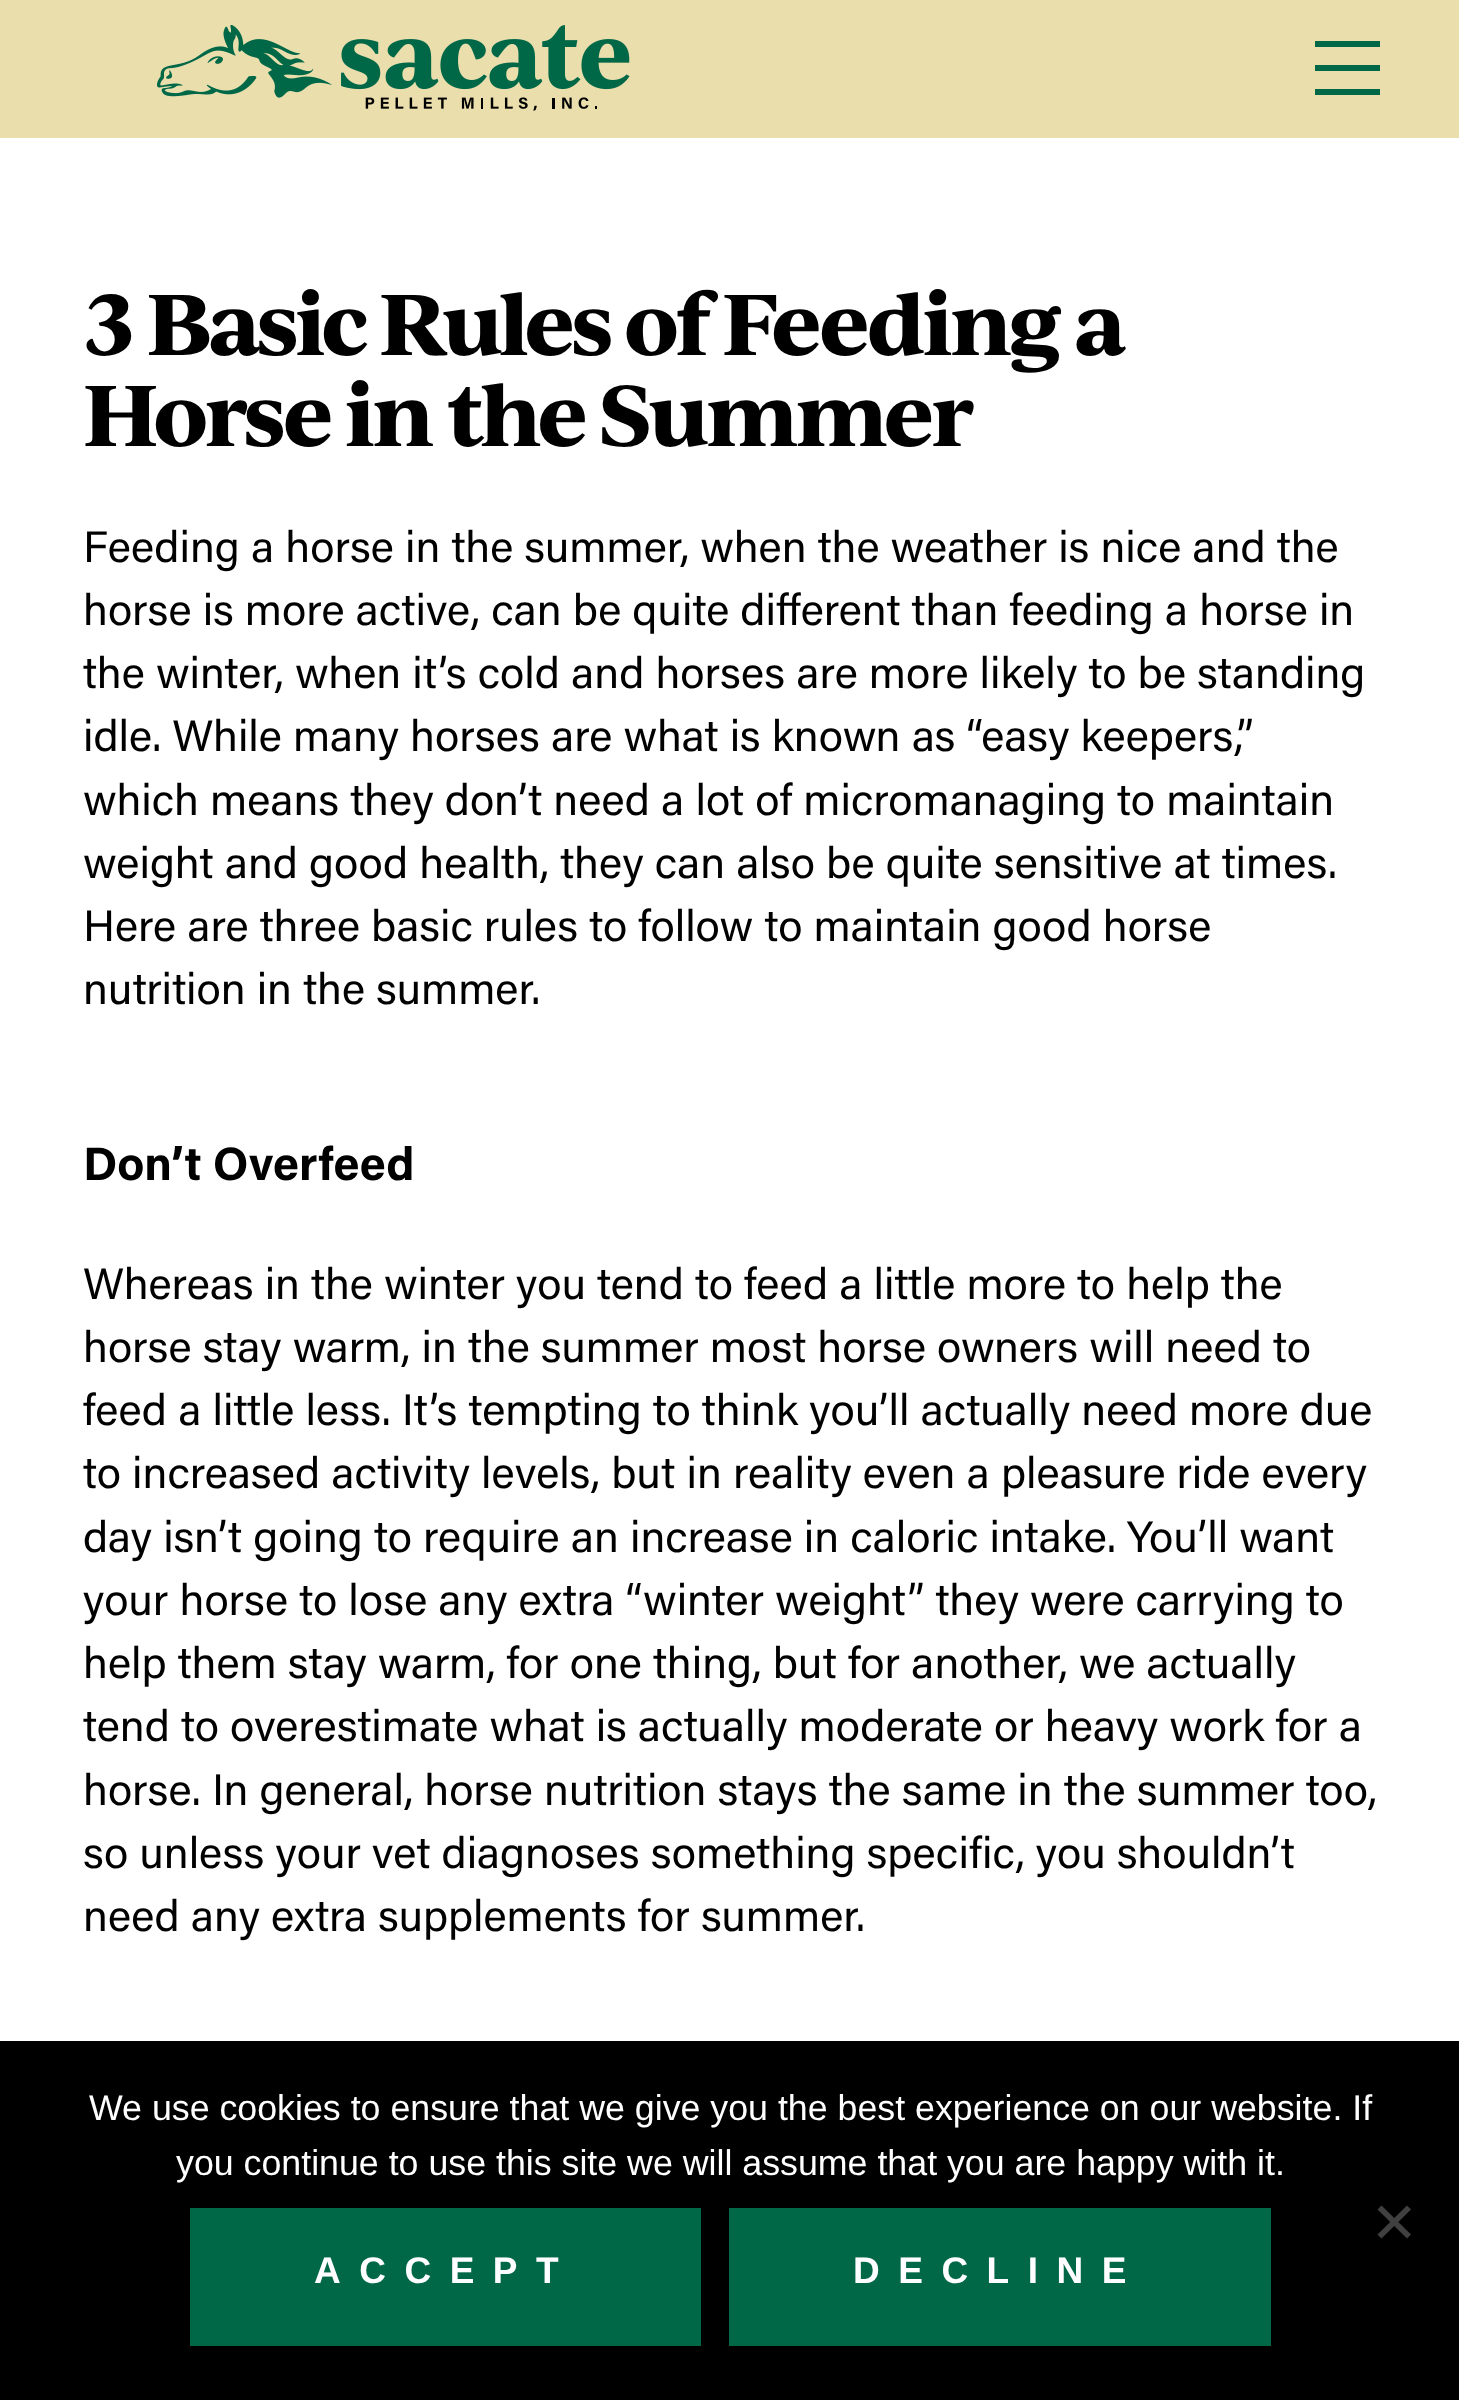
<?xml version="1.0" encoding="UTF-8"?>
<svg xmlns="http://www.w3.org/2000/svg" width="1459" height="2400">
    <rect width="100%" height="100%" fill="#FFFFFF"/>
    <rect x="0" y="0" width="1459" height="138" fill="#EADEAC"/>
    <image x="157" y="25" width="473" height="86" href="img_01.png"/>
    <rect x="1315" y="41" width="65" height="6" fill="#006747"/>
    <rect x="1315" y="65" width="65" height="6" fill="#006747"/>
    <rect x="1315" y="89" width="65" height="6" fill="#006747"/>
    <text font-family="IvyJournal" font-size="82.5" font-weight="700" letter-spacing="-3.3" fill="#000000">
        <tspan x="83" y="355">3 Basic Rules of Feeding a</tspan>
        <tspan x="83" y="446">Horse in the Summer</tspan>
    </text>
    <text font-family="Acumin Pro" font-size="44" fill="#000000">
        <tspan x="83" y="562">Feeding a horse in the summer, when the weather is nice and the</tspan>
        <tspan x="83" y="625">horse is more active, can be quite different than feeding a horse in</tspan>
        <tspan x="83" y="688">the winter, when it’s cold and horses are more likely to be standing</tspan>
        <tspan x="83" y="751">idle. While many horses are what is known as “easy keepers,”</tspan>
        <tspan x="83" y="815">which means they don’t need a lot of micromanaging to maintain</tspan>
        <tspan x="83" y="878">weight and good health, they can also be quite sensitive at times.</tspan>
        <tspan x="83" y="941">Here are three basic rules to follow to maintain good horse</tspan>
        <tspan x="83" y="1004">nutrition in the summer.</tspan>
    </text>
    <text x="83" y="1180" font-family="Acumin Pro" font-size="46.75" font-weight="700" fill="#000000">Don’t Overfeed</text>
    <text font-family="Acumin Pro" font-size="44" fill="#000000">
        <tspan x="83" y="1299">Whereas in the winter you tend to feed a little more to help the</tspan>
        <tspan x="83" y="1362">horse stay warm, in the summer most horse owners will need to</tspan>
        <tspan x="83" y="1425">feed a little less. It’s tempting to think you’ll actually need more due</tspan>
        <tspan x="83" y="1488">to increased activity levels, but in reality even a pleasure ride every</tspan>
        <tspan x="83" y="1552">day isn’t going to require an increase in caloric intake. You’ll want</tspan>
        <tspan x="83" y="1615">your horse to lose any extra “winter weight” they were carrying to</tspan>
        <tspan x="83" y="1678">help them stay warm, for one thing, but for another, we actually</tspan>
        <tspan x="83" y="1741">tend to overestimate what is actually moderate or heavy work for a</tspan>
        <tspan x="83" y="1805">horse. In general, horse nutrition stays the same in the summer too,</tspan>
        <tspan x="83" y="1868">so unless your vet diagnoses something specific, you shouldn’t</tspan>
        <tspan x="83" y="1931">need any extra supplements for summer.</tspan>
    </text>
    <rect x="0" y="2041" width="1459" height="359" fill="#000000"/>
    <text x="89" y="2120" font-family="Liberation Sans" font-size="35.75" fill="#FFFFFF">We use cookies to ensure that we give you the best experience on our website. If</text>
    <text x="176" y="2175" font-family="Liberation Sans" font-size="35.75" fill="#FFFFFF">you continue to use this site we will assume that you are happy with it.</text>
    <path d="M 1407 2205.5 L 1411 2209.5 L 1381.5 2238.5 L 1377.5 2234.5 Z" fill="#404040"/>
    <path d="M 1377.5 2209.5 L 1381.5 2205.5 L 1411 2234.5 L 1407 2238.5 Z" fill="#404040"/>
    <rect x="190" y="2208" width="511" height="138" fill="#006747"/>
    <text x="314" y="2283" font-family="Liberation Sans" font-size="37" font-weight="700" letter-spacing="18.5" fill="#FFFFFF">ACCEPT</text>
    <rect x="729" y="2208" width="542" height="138" fill="#006747"/>
    <text x="853" y="2283" font-family="Liberation Sans" font-size="37" font-weight="700" letter-spacing="18.5" fill="#FFFFFF">DECLINE</text>
</svg>
